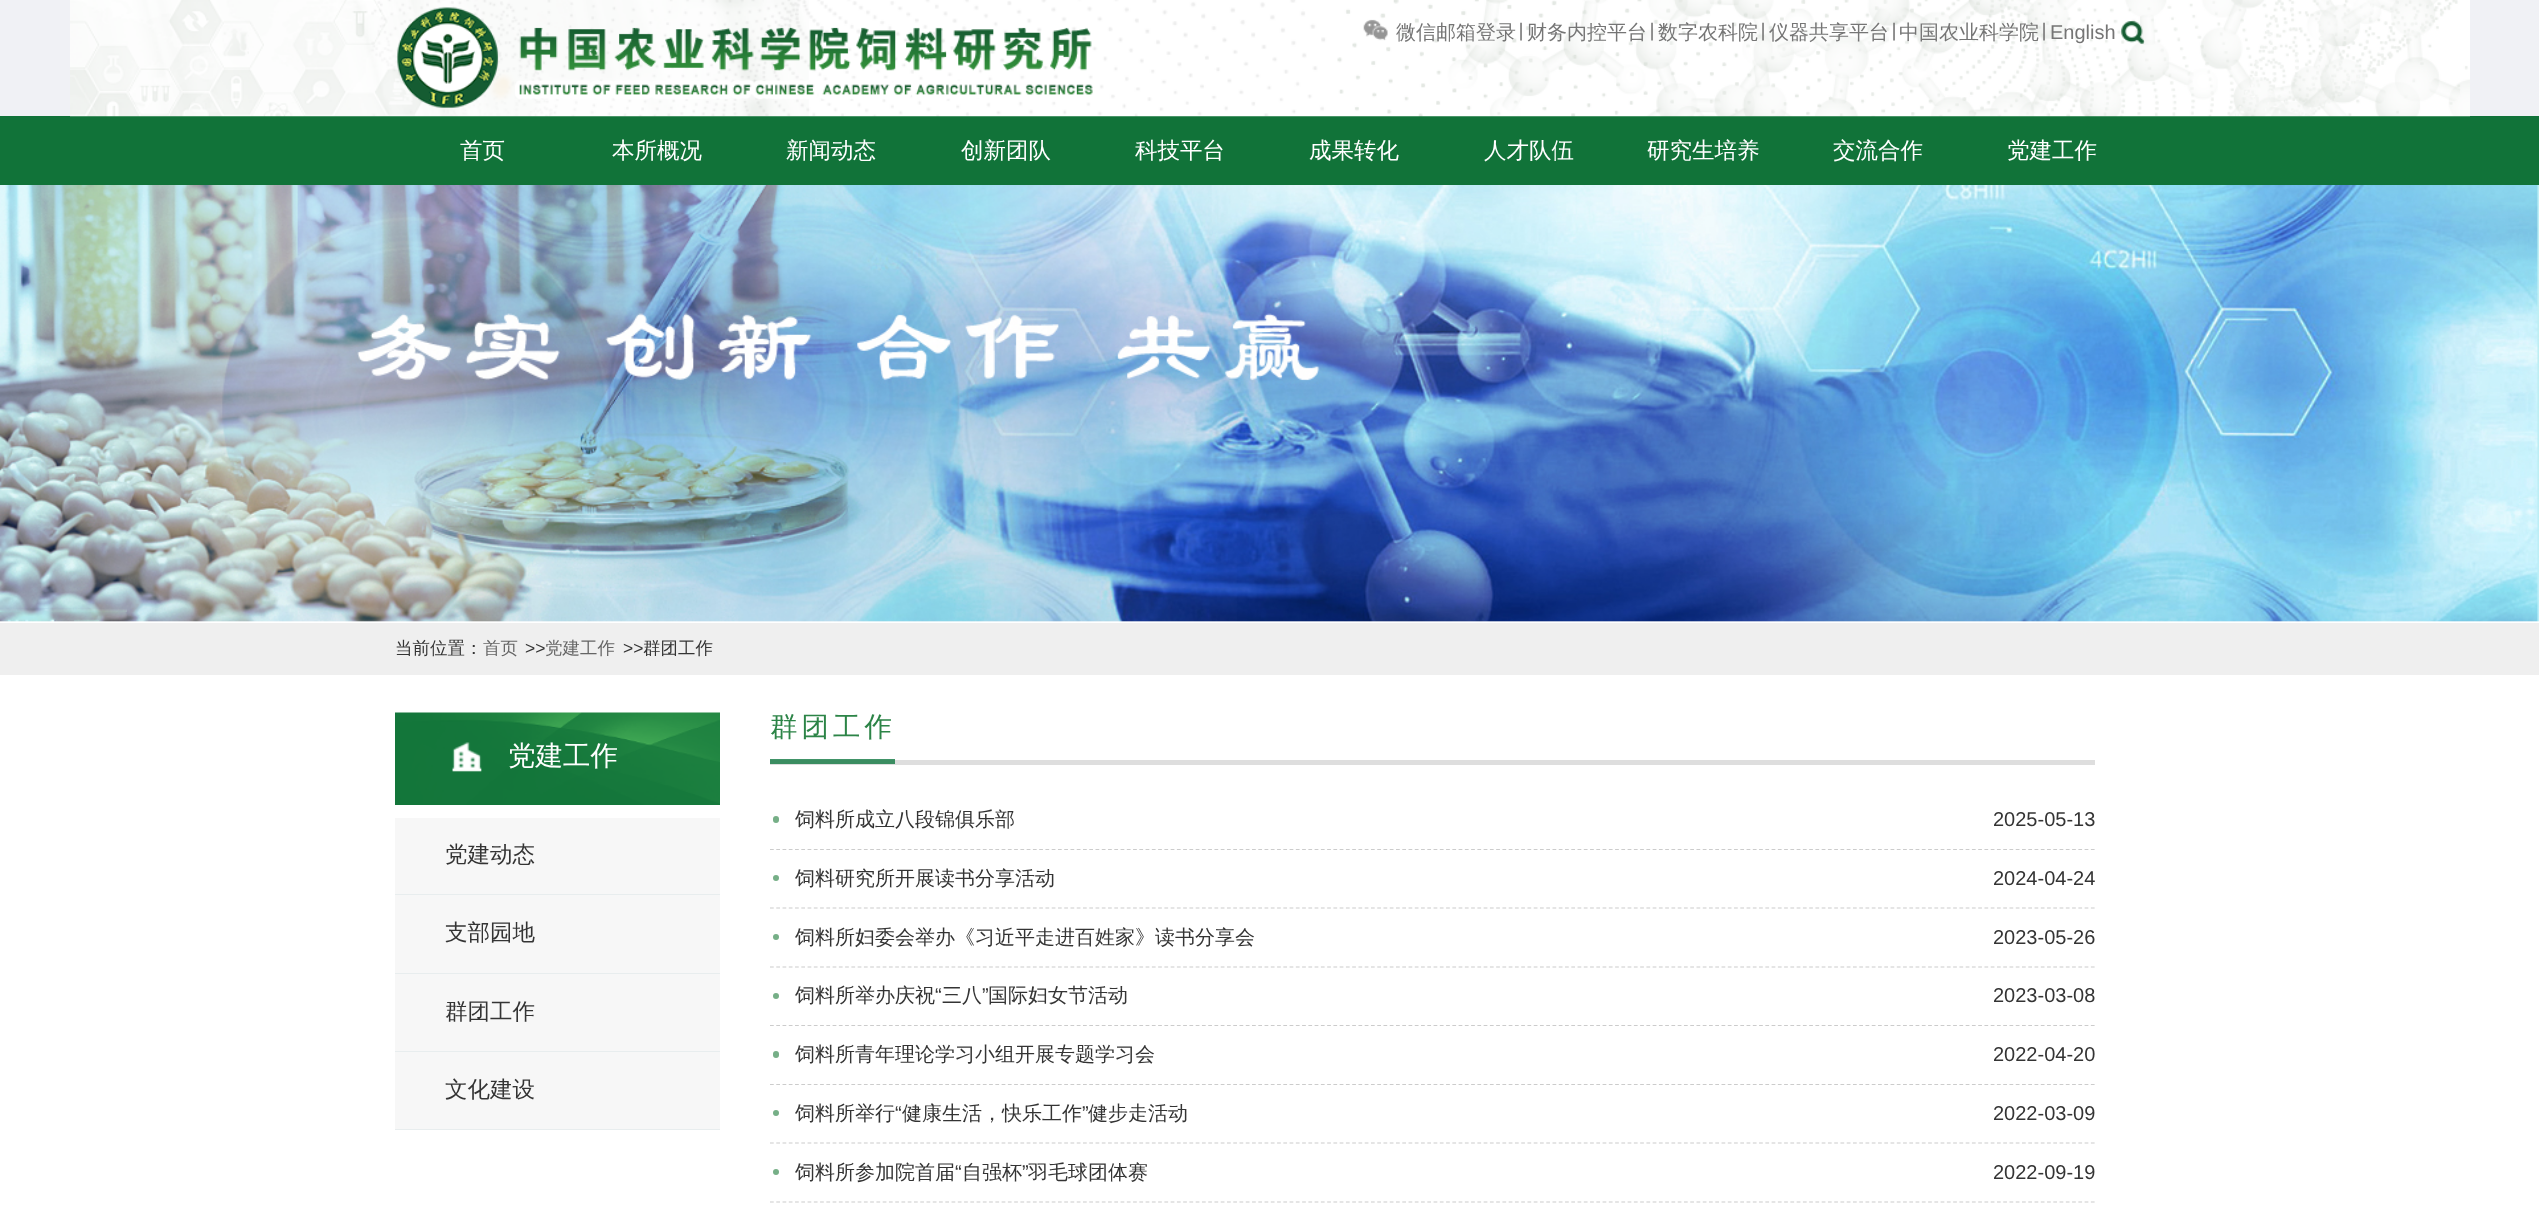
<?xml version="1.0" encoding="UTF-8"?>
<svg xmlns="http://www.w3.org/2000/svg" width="2539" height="1218">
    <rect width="100%" height="100%" fill="#FFFFFF"/>
    <rect x="770" y="759" width="125" height="1" fill="#419468"/>
    <rect x="0" y="0" width="2539" height="116" fill="#F0F1F5"/>
    <rect x="0" y="116" width="2539" height="69" fill="#117339"/>
    <image x="70" y="0" width="2400" height="117" href="img_01.png"/>
    <image x="397" y="7" width="696" height="101" href="img_02.png"/>
    <image x="1363" y="19" width="25" height="22" href="img_03.png"/>
    <text x="1396" y="39" font-family="WenQuanYi Zen Hei" font-size="20" font-weight="500" fill="#757575">微信</text>
    <text x="1436" y="39" font-family="WenQuanYi Zen Hei" font-size="20" font-weight="500" fill="#757575">邮箱登录∣</text>
    <text x="1527" y="39" font-family="WenQuanYi Zen Hei" font-size="20" font-weight="500" fill="#757575">财务内控平台∣</text>
    <text x="1658" y="39" font-family="WenQuanYi Zen Hei" font-size="20" font-weight="500" fill="#757575">数字农科院∣</text>
    <text x="1769" y="39" font-family="WenQuanYi Zen Hei" font-size="20" font-weight="500" fill="#757575">仪器共享平台∣</text>
    <text x="1899" y="39" font-family="WenQuanYi Zen Hei" font-size="20" font-weight="500" fill="#757575">中国农业科学院∣</text>
    <text x="2050" y="39" font-family="Liberation Sans" font-size="20" fill="#757575">English</text>
    <image x="2121" y="21" width="24" height="23" href="img_04.png"/>
    <text x="460" y="158" font-family="WenQuanYi Zen Hei" font-size="22.5" font-weight="500" fill="#FFFFFF">首页</text>
    <text x="612" y="158" font-family="WenQuanYi Zen Hei" font-size="22.5" font-weight="500" fill="#FFFFFF">本所概况</text>
    <text x="786" y="158" font-family="WenQuanYi Zen Hei" font-size="22.5" font-weight="500" fill="#FFFFFF">新闻动态</text>
    <text x="961" y="158" font-family="WenQuanYi Zen Hei" font-size="22.5" font-weight="500" fill="#FFFFFF">创新团队</text>
    <text x="1135" y="158" font-family="WenQuanYi Zen Hei" font-size="22.5" font-weight="500" fill="#FFFFFF">科技平台</text>
    <text x="1309" y="158" font-family="WenQuanYi Zen Hei" font-size="22.5" font-weight="500" fill="#FFFFFF">成果转化</text>
    <text x="1484" y="158" font-family="WenQuanYi Zen Hei" font-size="22.5" font-weight="500" fill="#FFFFFF">人才队伍</text>
    <text x="1647" y="158" font-family="WenQuanYi Zen Hei" font-size="22.5" font-weight="500" fill="#FFFFFF">研究生培养</text>
    <text x="1833" y="158" font-family="WenQuanYi Zen Hei" font-size="22.5" font-weight="500" fill="#FFFFFF">交流合作</text>
    <text x="2007" y="158" font-family="WenQuanYi Zen Hei" font-size="22.5" font-weight="500" fill="#FFFFFF">党建工作</text>
    <image x="0" y="185" width="2539" height="437" href="img_05.png"/>
    <rect x="0" y="623" width="2539" height="52" fill="#EFEFEF"/>
    <text x="395" y="654" font-family="WenQuanYi Zen Hei" font-size="17.5" font-weight="500" fill="#343434">当前位置：</text>
    <text x="483" y="654" font-family="WenQuanYi Zen Hei" font-size="17.5" font-weight="500" fill="#656565">首页</text>
    <text x="525" y="654" font-family="Liberation Sans" font-size="17.5" fill="#343434">&gt;&gt;</text>
    <text x="545" y="654" font-family="WenQuanYi Zen Hei" font-size="17.5" font-weight="500" fill="#656565">党建工作</text>
    <text x="623" y="654" font-family="Liberation Sans" font-size="17.5" fill="#343434">&gt;&gt;</text>
    <text x="643" y="654" font-family="WenQuanYi Zen Hei" font-size="17.5" font-weight="500" fill="#343434">群团工作</text>
    <image x="395" y="712" width="325" height="93" href="img_06.png"/>
    <image x="452" y="742" width="30" height="30" href="img_07.png"/>
    <text x="508" y="765" font-family="WenQuanYi Zen Hei" font-size="27.5" font-weight="500" fill="#FFFFFF">党建工作</text>
    <rect x="395" y="818" width="325" height="311" fill="#F7F7F7"/>
    <rect x="395" y="894" width="325" height="1" fill="#E8EDEE"/>
    <text x="445" y="862" font-family="WenQuanYi Zen Hei" font-size="22.5" font-weight="500" fill="#343434">党建动态</text>
    <rect x="395" y="973" width="325" height="1" fill="#E8EDEE"/>
    <text x="445" y="940" font-family="WenQuanYi Zen Hei" font-size="22.5" font-weight="500" fill="#343434">支部园地</text>
    <rect x="395" y="1051" width="325" height="1" fill="#E8EDEE"/>
    <text x="445" y="1019" font-family="WenQuanYi Zen Hei" font-size="22.5" font-weight="500" fill="#343434">群团工作</text>
    <rect x="395" y="1129" width="325" height="1" fill="#E8EDEE"/>
    <text x="445" y="1097" font-family="WenQuanYi Zen Hei" font-size="22.5" font-weight="500" fill="#343434">文化建设</text>
    <rect x="770" y="760" width="1325" height="5" fill="#DEDEDE"/>
    <rect x="770" y="760" width="125" height="4" fill="#3B8D61"/>
    <text x="770" y="736" font-family="WenQuanYi Zen Hei" font-size="27.5" font-weight="500" letter-spacing="4" fill="#2C8447">群团工作</text>
    <path d="M 770 849.5 H 2095" fill="none" stroke="#CCCCCC" stroke-width="1.2" stroke-dasharray="3.75 2.51"/>
    <rect x="773" y="816" width="6" height="7" rx="3" fill="#76AF87"/>
    <text x="795" y="826" font-family="WenQuanYi Zen Hei" font-size="20" font-weight="500" fill="#343434">饲料所成立八段锦俱乐部</text>
    <text x="1993" y="826" font-family="Liberation Sans" font-size="20" fill="#343434">2025-05-13</text>
    <path d="M 770 908 H 2095" fill="none" stroke="#CCCCCC" stroke-width="1.2" stroke-dasharray="3.75 2.51"/>
    <circle cx="776" cy="878" r="3" fill="#76AF87"/>
    <text x="795" y="885" font-family="WenQuanYi Zen Hei" font-size="20" font-weight="500" fill="#343434">饲料研究所开展读书分享活动</text>
    <text x="1993" y="885" font-family="Liberation Sans" font-size="20" fill="#343434">2024-04-24</text>
    <path d="M 770 967 H 2095" fill="none" stroke="#CCCCCC" stroke-width="1.2" stroke-dasharray="3.75 2.51"/>
    <circle cx="776" cy="937" r="3" fill="#76AF87"/>
    <text x="795" y="944" font-family="WenQuanYi Zen Hei" font-size="20" font-weight="500" fill="#343434">饲料所妇委会举办《习近平走进百姓家》读书分享会</text>
    <text x="1993" y="944" font-family="Liberation Sans" font-size="20" fill="#343434">2023-05-26</text>
    <path d="M 770 1025.5 H 2095" fill="none" stroke="#CCCCCC" stroke-width="1.2" stroke-dasharray="3.75 2.51"/>
    <text x="795" y="1002" font-family="WenQuanYi Zen Hei" font-size="20" font-weight="500" fill="#343434">饲料所举办庆祝</text>
    <text x="935" y="1002" font-family="Liberation Sans" font-size="20" fill="#343434">“</text>
    <text x="942" y="1002" font-family="WenQuanYi Zen Hei" font-size="20" font-weight="500" fill="#343434">三八</text>
    <text x="982" y="1002" font-family="Liberation Sans" font-size="20" fill="#343434">”</text>
    <text x="988" y="1002" font-family="WenQuanYi Zen Hei" font-size="20" font-weight="500" fill="#343434">国际妇女节活动</text>
    <circle cx="776" cy="996" r="3" fill="#76AF87"/>
    <text x="1993" y="1002" font-family="Liberation Sans" font-size="20" fill="#343434">2023-03-08</text>
    <path d="M 770 1084.5 H 2095" fill="none" stroke="#CCCCCC" stroke-width="1.2" stroke-dasharray="3.75 2.51"/>
    <rect x="773" y="1051" width="6" height="7" rx="3" fill="#76AF87"/>
    <text x="795" y="1061" font-family="WenQuanYi Zen Hei" font-size="20" font-weight="500" fill="#343434">饲料所青年理论学习小组开展专题学习会</text>
    <text x="1993" y="1061" font-family="Liberation Sans" font-size="20" fill="#343434">2022-04-20</text>
    <path d="M 770 1143 H 2095" fill="none" stroke="#CCCCCC" stroke-width="1.2" stroke-dasharray="3.75 2.51"/>
    <text x="795" y="1120" font-family="WenQuanYi Zen Hei" font-size="20" font-weight="500" fill="#343434">饲料所举行</text>
    <text x="895" y="1120" font-family="Liberation Sans" font-size="20" fill="#343434">“</text>
    <text x="902" y="1120" font-family="WenQuanYi Zen Hei" font-size="20" font-weight="500" fill="#343434">健康生活，快乐工作</text>
    <text x="1082" y="1120" font-family="Liberation Sans" font-size="20" fill="#343434">”</text>
    <text x="1088" y="1120" font-family="WenQuanYi Zen Hei" font-size="20" font-weight="500" fill="#343434">健步走活动</text>
    <circle cx="776" cy="1113" r="3" fill="#76AF87"/>
    <text x="1993" y="1120" font-family="Liberation Sans" font-size="20" fill="#343434">2022-03-09</text>
    <path d="M 770 1202 H 2095" fill="none" stroke="#CCCCCC" stroke-width="1.2" stroke-dasharray="3.75 2.51"/>
    <text x="795" y="1179" font-family="WenQuanYi Zen Hei" font-size="20" font-weight="500" fill="#343434">饲料所参加院首届</text>
    <text x="955" y="1179" font-family="Liberation Sans" font-size="20" fill="#343434">“</text>
    <text x="962" y="1179" font-family="WenQuanYi Zen Hei" font-size="20" font-weight="500" fill="#343434">自强杯</text>
    <text x="1022" y="1179" font-family="Liberation Sans" font-size="20" fill="#343434">”</text>
    <text x="1028" y="1179" font-family="WenQuanYi Zen Hei" font-size="20" font-weight="500" fill="#343434">羽毛球团体赛</text>
    <circle cx="776" cy="1172" r="3" fill="#76AF87"/>
    <text x="1993" y="1179" font-family="Liberation Sans" font-size="20" fill="#343434">2022-09-19</text>
</svg>
